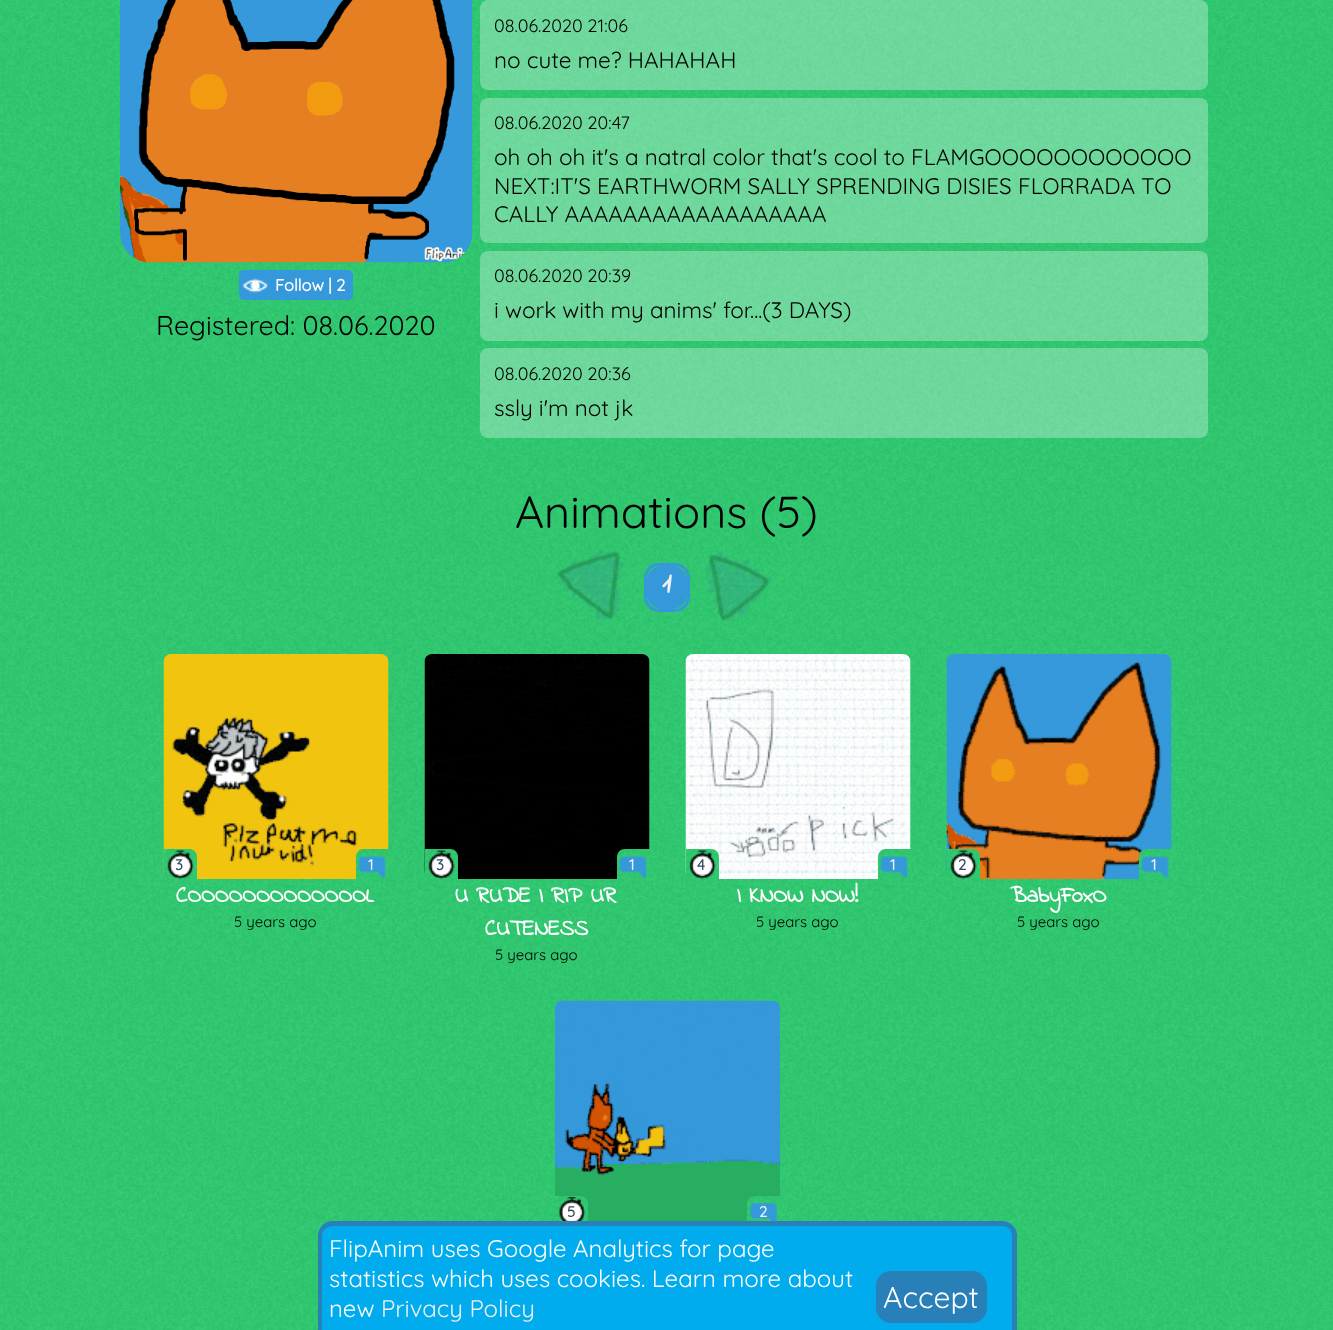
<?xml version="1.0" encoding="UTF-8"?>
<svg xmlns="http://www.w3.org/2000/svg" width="1333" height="1330">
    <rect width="100%" height="100%" fill="#2ECC71"/>
    <image x="0" y="0" width="1333" height="1330" href="img_01.png"/>
    <image x="120" y="0" width="353" height="263" href="img_02.png"/>
    <rect x="239" y="270" width="114" height="30" rx="5" fill="#3498DB"/>
    <image x="242" y="278" width="26" height="15" href="img_03.png"/>
    <text x="275" y="291" font-family="Quicksand" font-size="16.5" font-weight="700" fill="#FFFFFF">Follow | 2</text>
    <text x="156" y="335" font-family="Quicksand" font-size="27" font-weight="300" fill="#000000">Registered: 08.06.2020</text>
    <rect x="480" y="0" width="728" height="90" rx="8" fill="#FFFFFF" fill-opacity="0.3"/>
    <text x="494" y="32" font-family="Quicksand" font-size="18" font-weight="300" fill="#000000">08.06.2020 21:06</text>
    <text x="494" y="68" font-family="Quicksand" font-size="22.5" font-weight="300" fill="#000000">no cute me? HAHAHAH</text>
    <rect x="480" y="98" width="728" height="145" rx="8" fill="#FFFFFF" fill-opacity="0.3"/>
    <text x="494" y="129" font-family="Quicksand" font-size="18" font-weight="300" fill="#000000">08.06.2020 20:47</text>
    <text font-family="Quicksand" font-size="22.5" font-weight="300" fill="#000000">
        <tspan x="494" y="165">oh oh oh it's a natral color that's cool to FLAMGOOOOOOOOOOOO</tspan>
        <tspan x="494" y="194">NEXT:IT'S EARTHWORM SALLY SPRENDING DISIES FLORRADA TO</tspan>
        <tspan x="494" y="222">CALLY AAAAAAAAAAAAAAAAAA</tspan>
    </text>
    <rect x="480" y="251" width="728" height="90" rx="8" fill="#FFFFFF" fill-opacity="0.3"/>
    <text x="494" y="282" font-family="Quicksand" font-size="18" font-weight="300" fill="#000000">08.06.2020 20:39</text>
    <text x="494" y="318" font-family="Quicksand" font-size="22.5" font-weight="300" fill="#000000">i work with my anims' for...(3 DAYS)</text>
    <rect x="480" y="348" width="728" height="90" rx="8" fill="#FFFFFF" fill-opacity="0.3"/>
    <text x="494" y="380" font-family="Quicksand" font-size="18" font-weight="300" fill="#000000">08.06.2020 20:36</text>
    <text x="494" y="416" font-family="Quicksand" font-size="22.5" font-weight="300" fill="#000000">ssly i'm not jk</text>
    <text x="515" y="528" font-family="Quicksand" font-size="45" font-weight="300" fill="#000000">Animations (5)</text>
    <image x="558" y="549" width="66" height="71" href="img_04.png"/>
    <rect x="645.5" y="564.5" width="43" height="46" rx="13.5" fill="none" stroke="#3498DB" stroke-width="3"/>
    <rect x="647" y="566" width="40" height="43" rx="15" fill="#3498DB"/>
    <text x="662" y="593" font-family="Indie Flower" font-size="30" font-weight="700" fill="#ECF0F1">1</text>
    <image x="705" y="552" width="66" height="69" href="img_05.png"/>
    <image x="163" y="654" width="226" height="225" href="img_06.png"/>
    <path d="M 164 849 H 189 C 193.5 849 197 852.5 197 857 V 879 H 164 Z" fill="#2ECC71"/>
    <image x="163" y="849" width="34" height="30" href="img_07.png"/>
    <image x="167" y="850" width="27" height="30" href="img_08.png"/>
    <text x="175" y="870" font-family="Quicksand" font-size="15" font-weight="700" fill="#34495E">3</text>
    <path d="M 364 849 H 389 V 879 H 356 V 857 C 356 852.5 359.5 849 364 849 Z" fill="#2ECC71"/>
    <image x="355" y="849" width="34" height="30" href="img_09.png"/>
    <image x="358" y="856" width="28" height="22" href="img_10.png"/>
    <text x="368" y="870" font-family="Quicksand" font-size="15" font-weight="700" fill="#ECF0F1">1</text>
    <text x="176" y="902" font-family="Indie Flower" font-size="22.5" font-weight="700" fill="#FFFFFF">COOOOOOOOOOOOOL</text>
    <text x="234" y="927" font-family="Quicksand" font-size="15" font-weight="300" fill="#000000">5 years ago</text>
    <image x="424" y="654" width="226" height="225" href="img_11.png"/>
    <path d="M 425 849 H 450 C 454.5 849 458 852.5 458 857 V 879 H 425 Z" fill="#2ECC71"/>
    <image x="424" y="849" width="34" height="30" href="img_12.png"/>
    <image x="428" y="850" width="27" height="30" href="img_13.png"/>
    <text x="436" y="870" font-family="Quicksand" font-size="15" font-weight="700" fill="#34495E">3</text>
    <path d="M 625 849 H 650 V 879 H 617 V 857 C 617 852.5 620.5 849 625 849 Z" fill="#2ECC71"/>
    <image x="616" y="849" width="34" height="30" href="img_14.png"/>
    <image x="619" y="856" width="28" height="22" href="img_15.png"/>
    <text x="629" y="870" font-family="Quicksand" font-size="15" font-weight="700" fill="#ECF0F1">1</text>
    <text x="455" y="902" font-family="Indie Flower" font-size="22.5" font-weight="700" fill="#FFFFFF">U RUDE I RIP UR</text>
    <text x="485" y="935" font-family="Indie Flower" font-size="22.5" font-weight="700" fill="#FFFFFF">CUTENESS</text>
    <text x="495" y="960" font-family="Quicksand" font-size="15" font-weight="300" fill="#000000">5 years ago</text>
    <image x="685" y="654" width="226" height="225" href="img_16.png"/>
    <path d="M 686 849 H 711 C 715.5 849 719 852.5 719 857 V 879 H 686 Z" fill="#2ECC71"/>
    <image x="685" y="849" width="34" height="30" href="img_17.png"/>
    <image x="689" y="850" width="27" height="30" href="img_18.png"/>
    <text x="697" y="870" font-family="Quicksand" font-size="15" font-weight="700" fill="#34495E">4</text>
    <path d="M 886 849 H 911 V 879 H 878 V 857 C 878 852.5 881.5 849 886 849 Z" fill="#2ECC71"/>
    <image x="877" y="849" width="34" height="30" href="img_19.png"/>
    <image x="880" y="856" width="28" height="22" href="img_20.png"/>
    <text x="890" y="870" font-family="Quicksand" font-size="15" font-weight="700" fill="#ECF0F1">1</text>
    <text x="737" y="902" font-family="Indie Flower" font-size="22.5" font-weight="700" fill="#FFFFFF">I KNOW NOW!</text>
    <text x="756" y="927" font-family="Quicksand" font-size="15" font-weight="300" fill="#000000">5 years ago</text>
    <image x="946" y="654" width="226" height="225" href="img_21.png"/>
    <path d="M 947 849 H 972 C 976.5 849 980 852.5 980 857 V 879 H 947 Z" fill="#2ECC71"/>
    <image x="946" y="849" width="34" height="30" href="img_22.png"/>
    <image x="950" y="850" width="27" height="30" href="img_23.png"/>
    <text x="958" y="870" font-family="Quicksand" font-size="15" font-weight="700" fill="#34495E">2</text>
    <path d="M 1147 849 H 1172 V 879 H 1139 V 857 C 1139 852.5 1142.5 849 1147 849 Z" fill="#2ECC71"/>
    <image x="1138" y="849" width="34" height="30" href="img_24.png"/>
    <image x="1141" y="856" width="28" height="22" href="img_10.png"/>
    <text x="1151" y="870" font-family="Quicksand" font-size="15" font-weight="700" fill="#ECF0F1">1</text>
    <text x="1010" y="902" font-family="Indie Flower" font-size="22.5" font-weight="700" fill="#FFFFFF">BabyFoxO</text>
    <text x="1017" y="927" font-family="Quicksand" font-size="15" font-weight="300" fill="#000000">5 years ago</text>
    <image x="555" y="1000" width="225" height="221" href="img_25.png"/>
    <path d="M 555 1196 H 580 C 584.5 1196 588 1199.5 588 1204 V 1226 H 555 Z" fill="#2ECC71"/>
    <image x="555" y="1195" width="33" height="26" href="img_26.png"/>
    <image x="559" y="1197" width="27" height="24" href="img_27.png"/>
    <text x="567" y="1217" font-family="Quicksand" font-size="15" font-weight="700" fill="#34495E">5</text>
    <path d="M 755 1196 H 780 V 1226 H 747 V 1204 C 747 1199.5 750.5 1196 755 1196 Z" fill="#2ECC71"/>
    <image x="747" y="1195" width="33" height="26" href="img_28.png"/>
    <image x="749" y="1202" width="29" height="19" href="img_29.png"/>
    <text x="759" y="1217" font-family="Quicksand" font-size="15" font-weight="700" fill="#ECF0F1">2</text>
    <path d="M 333 1221 H 1002 C 1010.5 1221 1017 1227.5 1017 1236 V 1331 H 318 V 1236 C 318 1227.5 324.5 1221 333 1221 Z" fill="#00ACED"/>
    <path d="M 333 1221 H 1002 C 1010 1221 1017 1228 1017 1236 V 1330 H 318 V 1236 C 318 1228 325 1221 333 1221 Z M 333 1226 H 1002 C 1008 1226 1012 1230 1012 1236 V 1330 H 322 V 1236 C 322 1230 327 1226 333 1226 Z" fill="#2980B9" fill-rule="evenodd"/>
    <text font-family="Quicksand" font-size="24" font-weight="300" fill="#FFFFFF">
        <tspan x="329" y="1257">FlipAnim uses Google Analytics for page</tspan>
        <tspan x="329" y="1287">statistics which uses cookies. Learn more about</tspan>
        <tspan x="329" y="1317">new</tspan>
    </text>
    <text x="381" y="1317" font-family="Quicksand" font-size="24" font-weight="300" fill="#ECF0F1">Privacy Policy</text>
    <rect x="876" y="1271" width="111" height="52" rx="15" fill="#2980B9"/>
    <text x="883" y="1308" font-family="Quicksand" font-size="30" font-weight="300" fill="#FFFFFF">Accept</text>
</svg>
